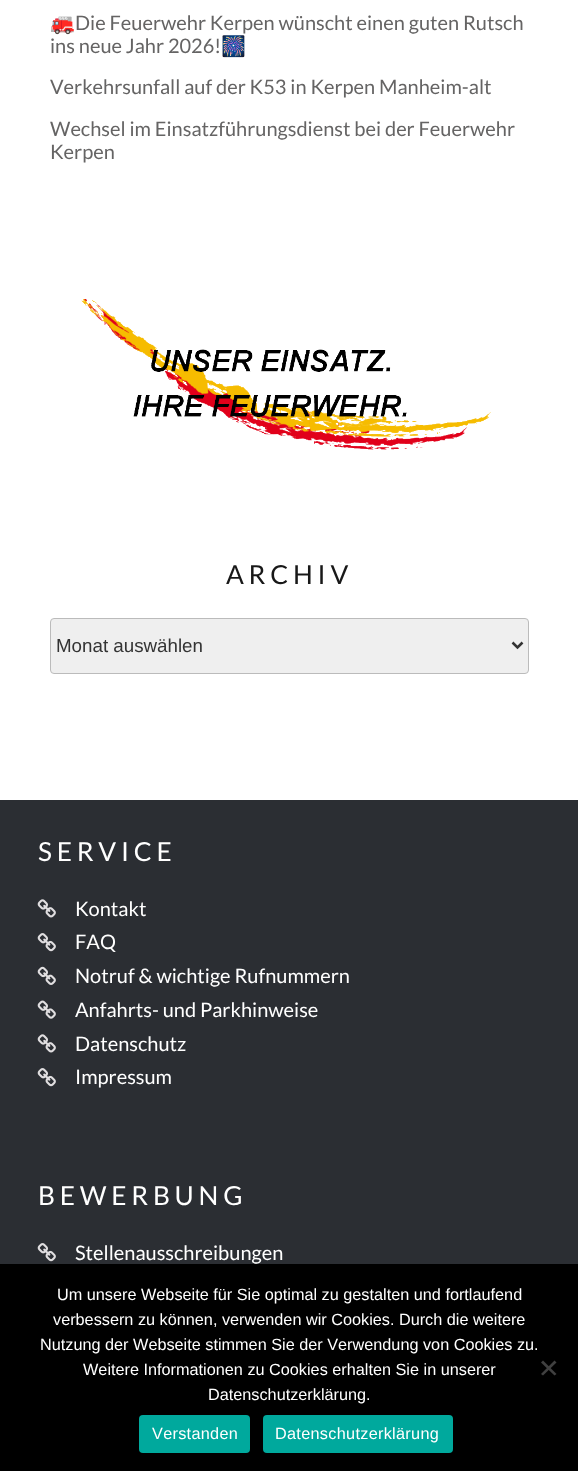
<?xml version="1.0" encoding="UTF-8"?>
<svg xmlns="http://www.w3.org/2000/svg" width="578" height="1471">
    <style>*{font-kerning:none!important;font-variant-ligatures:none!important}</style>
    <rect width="100%" height="100%" fill="#FFFFFF"/>
    <text x="50" y="30" font-family="Noto Color Emoji" font-size="20" fill="#656464">🚒</text>
    <text x="75" y="30" font-family="Lato" font-size="20" fill="#656464">Die Feuerwehr Kerpen wünscht einen guten Rutsch</text>
    <text x="50" y="53" font-family="Lato" font-size="20" fill="#656464">ins neue Jahr 2026!</text>
    <text x="221" y="53" font-family="Noto Color Emoji" font-size="20" fill="#656464">🎆</text>
    <text x="50" y="94" font-family="Lato" font-size="20" fill="#656464">Verkehrsunfall auf der K53 in Kerpen Manheim-alt</text>
    <text font-family="Lato" font-size="20" fill="#656464">
        <tspan x="50" y="136">Wechsel im Einsatzführungsdienst bei der Feuerwehr</tspan>
        <tspan x="50" y="159">Kerpen</tspan>
    </text>
    <image x="81" y="299" width="410" height="151" href="img_01.png"/>
    <text x="226" y="584" font-family="Lato" font-size="26.25" letter-spacing="4.75" fill="#181818">ARCHIV</text>
    <rect x="50.5" y="618.5" width="478" height="55" rx="3.5" fill="#EFEFEF" stroke="#BBBBBB"/>
    <path d="M 512.5 642.5 L 517.5 647.5 L 522.5 642.5" fill="none" stroke="#333333" stroke-width="2.5"/>
    <text x="56" y="652" font-family="Liberation Sans" font-size="18.75" fill="#333333">Monat auswählen</text>
    <rect x="0" y="800" width="578" height="464" fill="#2B2E33"/>
    <text x="38" y="861" font-family="Lato" font-size="26.25" letter-spacing="4.75" fill="#FFFFFF">SERVICE</text>
    <image x="37" y="899" width="19" height="19" href="img_02.png"/>
    <text x="75" y="916" font-family="Lato" font-size="20" fill="#FFFFFF">Kontakt</text>
    <image x="37" y="933" width="19" height="19" href="img_03.png"/>
    <text x="75" y="949" font-family="Lato" font-size="20" fill="#FFFFFF">FAQ</text>
    <image x="37" y="966" width="19" height="19" href="img_04.png"/>
    <text x="75" y="983" font-family="Lato" font-size="20" fill="#FFFFFF">Notruf &amp; wichtige Rufnummern</text>
    <image x="37" y="1000" width="19" height="19" href="img_05.png"/>
    <text x="75" y="1017" font-family="Lato" font-size="20" fill="#FFFFFF">Anfahrts- und Parkhinweise</text>
    <image x="37" y="1034" width="19" height="19" href="img_02.png"/>
    <text x="75" y="1051" font-family="Lato" font-size="20" fill="#FFFFFF">Datenschutz</text>
    <image x="37" y="1068" width="19" height="19" href="img_03.png"/>
    <text x="75" y="1084" font-family="Lato" font-size="20" fill="#FFFFFF">Impressum</text>
    <text x="38" y="1205" font-family="Lato" font-size="26.25" letter-spacing="4.75" fill="#FFFFFF">BEWERBUNG</text>
    <image x="37" y="1243" width="19" height="19" href="img_03.png"/>
    <text x="75" y="1260" font-family="Lato" font-size="20" fill="#FFFFFF">Stellenausschreibungen</text>
    <rect x="0" y="1264" width="578" height="207" fill="#000000"/>
    <text x="57" y="1300" font-family="Liberation Sans" font-size="16.25" fill="#FFFFFF">Um unsere Webseite für Sie optimal zu gestalten und fortlaufend</text>
    <text x="53" y="1325" font-family="Liberation Sans" font-size="16.25" fill="#FFFFFF">verbessern zu können, verwenden wir Cookies. Durch die weitere</text>
    <text x="40" y="1350" font-family="Liberation Sans" font-size="16.25" fill="#FFFFFF">Nutzung der Webseite stimmen Sie der Verwendung von Cookies zu.</text>
    <text x="83" y="1375" font-family="Liberation Sans" font-size="16.25" fill="#FFFFFF">Weitere Informationen zu Cookies erhalten Sie in unserer</text>
    <text x="208" y="1400" font-family="Liberation Sans" font-size="16.25" fill="#FFFFFF">Datenschutzerklärung.</text>
    <path d="M 554.5 1360.5 L 556.5 1362.5 L 543 1375.5 L 541 1374 Z" fill="#404040"/>
    <path d="M 541 1362.5 L 543 1360.5 L 556.5 1374 L 554.5 1375.5 Z" fill="#404040"/>
    <rect x="139" y="1415" width="111" height="38" rx="4" fill="#00A99D"/>
    <text x="152" y="1439" font-family="Liberation Sans" font-size="16.25" letter-spacing="0.3" fill="#FFFFFF">Verstanden</text>
    <rect x="263" y="1415" width="190" height="38" rx="4" fill="#00A99D"/>
    <text x="275" y="1439" font-family="Liberation Sans" font-size="16.25" letter-spacing="0.3" fill="#FFFFFF">Datenschutzerklärung</text>
</svg>
